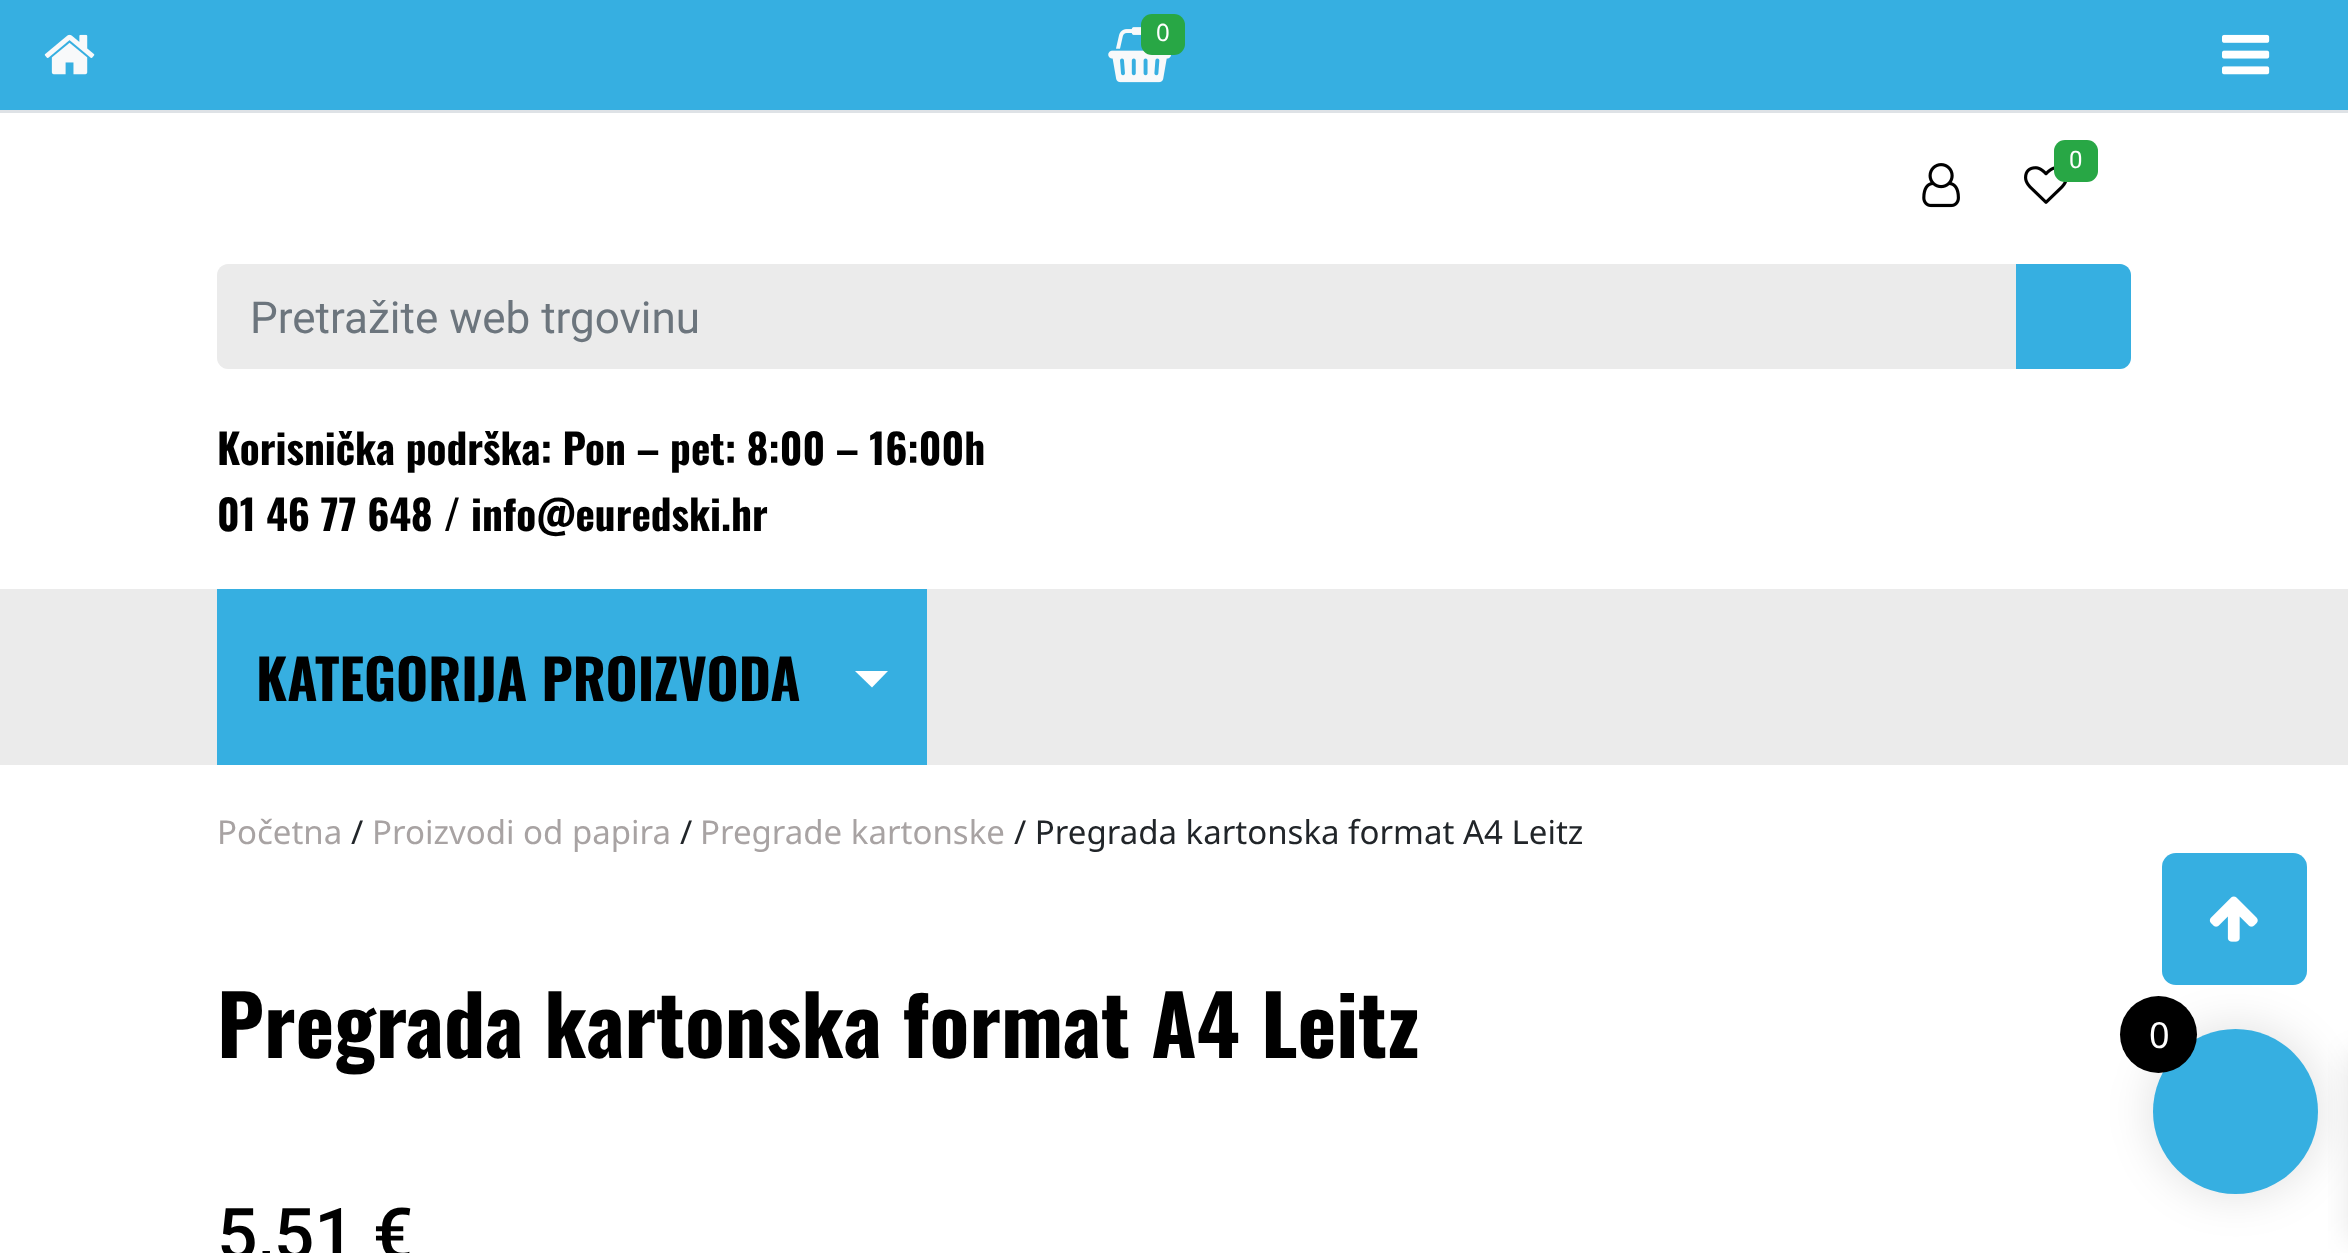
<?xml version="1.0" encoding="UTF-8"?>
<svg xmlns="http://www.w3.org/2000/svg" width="2348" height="1253">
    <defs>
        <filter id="blur1" x="-50%" y="-200%" width="200%" height="500%"><feGaussianBlur stdDeviation="20.5"/></filter>
        <filter id="blur2" x="-50%" y="-200%" width="200%" height="500%"><feGaussianBlur stdDeviation="14"/></filter>
    </defs>
    <rect width="100%" height="100%" fill="#FFFFFF"/>
    <rect x="0" y="0" width="2348" height="110" fill="#36AFE1"/>
    <rect x="0" y="110" width="2348" height="3" fill="#DEE2E6"/>
    <image x="44" y="34" width="51" height="41" href="img_01.png"/>
    <image x="1108" y="27" width="63" height="56" href="img_02.png"/>
    <rect x="1141" y="14" width="44" height="41" rx="11" fill="#28A745"/>
    <text x="1156" y="41" font-family="Noto Sans" font-size="24" fill="#FFFFFF">0</text>
    <image x="2222" y="34" width="48" height="41" href="img_03.png"/>
    <image x="2024" y="166" width="43" height="38" href="img_04.png"/>
    <rect x="2054" y="140" width="44" height="42" rx="11" fill="#28A745"/>
    <text x="2069" y="168" font-family="Roboto" font-size="24" fill="#FFFFFF">0</text>
    <image x="1922" y="163" width="38" height="45" href="img_05.png"/>
    <path d="M 228 264 H 2019 V 369 H 228 C 222 369 217 364 217 358 V 275 C 217 269 222 264 228 264 Z" fill="#EBEBEB"/>
    <text x="250" y="333" font-family="Roboto" font-size="44" fill="#6C757D">Pretražite web trgovinu</text>
    <path d="M 2016 264 H 2120 C 2126 264 2131 269 2131 275 V 358 C 2131 364 2126 369 2120 369 H 2016 Z" fill="#36AFE1"/>
    <text font-family="Oswald" font-size="41.25" font-weight="700" fill="#000000">
        <tspan x="217" y="465">Korisnička podrška: Pon – pet: 8:00 – 16:00h</tspan>
        <tspan x="217" y="531">01 46 77 648 / info@euredski.hr</tspan>
    </text>
    <rect x="0" y="589" width="2348" height="176" fill="#EBEBEB"/>
    <rect x="217" y="589" width="710" height="176" fill="#36AFE1"/>
    <text x="256" y="701" font-family="Oswald" font-size="55" font-weight="700" fill="#000000">KATEGORIJA PROIZVODA</text>
    <path d="M 855 671 H 888 L 872 687.5 Z" fill="#FFFFFF"/>
    <text x="217" y="844" font-family="Noto Sans" font-size="33" fill="#A8A3A3">Početna</text>
    <text x="351" y="844" font-family="Noto Sans" font-size="33" fill="#212529">/</text>
    <text x="372" y="844" font-family="Noto Sans" font-size="33" fill="#A8A3A3">Proizvodi od papira</text>
    <text x="680" y="844" font-family="Noto Sans" font-size="33" fill="#212529">/</text>
    <text x="700" y="844" font-family="Noto Sans" font-size="33" fill="#A8A3A3">Pregrade kartonske</text>
    <text x="1014" y="844" font-family="Noto Sans" font-size="33" fill="#212529">/ Pregrada kartonska format A4 Leitz</text>
    <text x="217" y="1058" font-family="Oswald" font-size="82.5" font-weight="700" fill="#000000">Pregrada kartonska format A4 Leitz</text>
    <text x="217" y="1259" font-family="Roboto" font-size="71.5" font-weight="500" fill="#000000">5,51 €</text>
    <rect x="2162" y="853" width="145" height="132" rx="14" fill="#36AFE1"/>
    <image x="2209" y="896" width="49" height="46" href="img_06.png"/>
    <rect x="2148" y="1023" width="176" height="176" rx="88" fill="#000000" fill-opacity="0.1" filter="url(#blur1)"/>
    <rect x="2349" y="1053" width="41" height="187" fill="#000000" fill-opacity="0.1" filter="url(#blur2)"/>
    <circle cx="2235.5" cy="1111.5" r="82.5" fill="#36AFE1"/>
    <circle cx="2158.5" cy="1034.5" r="38.5" fill="#000000"/>
    <text x="2149" y="1048" font-family="Noto Sans" font-size="36" fill="#FFFFFF">0</text>
</svg>
